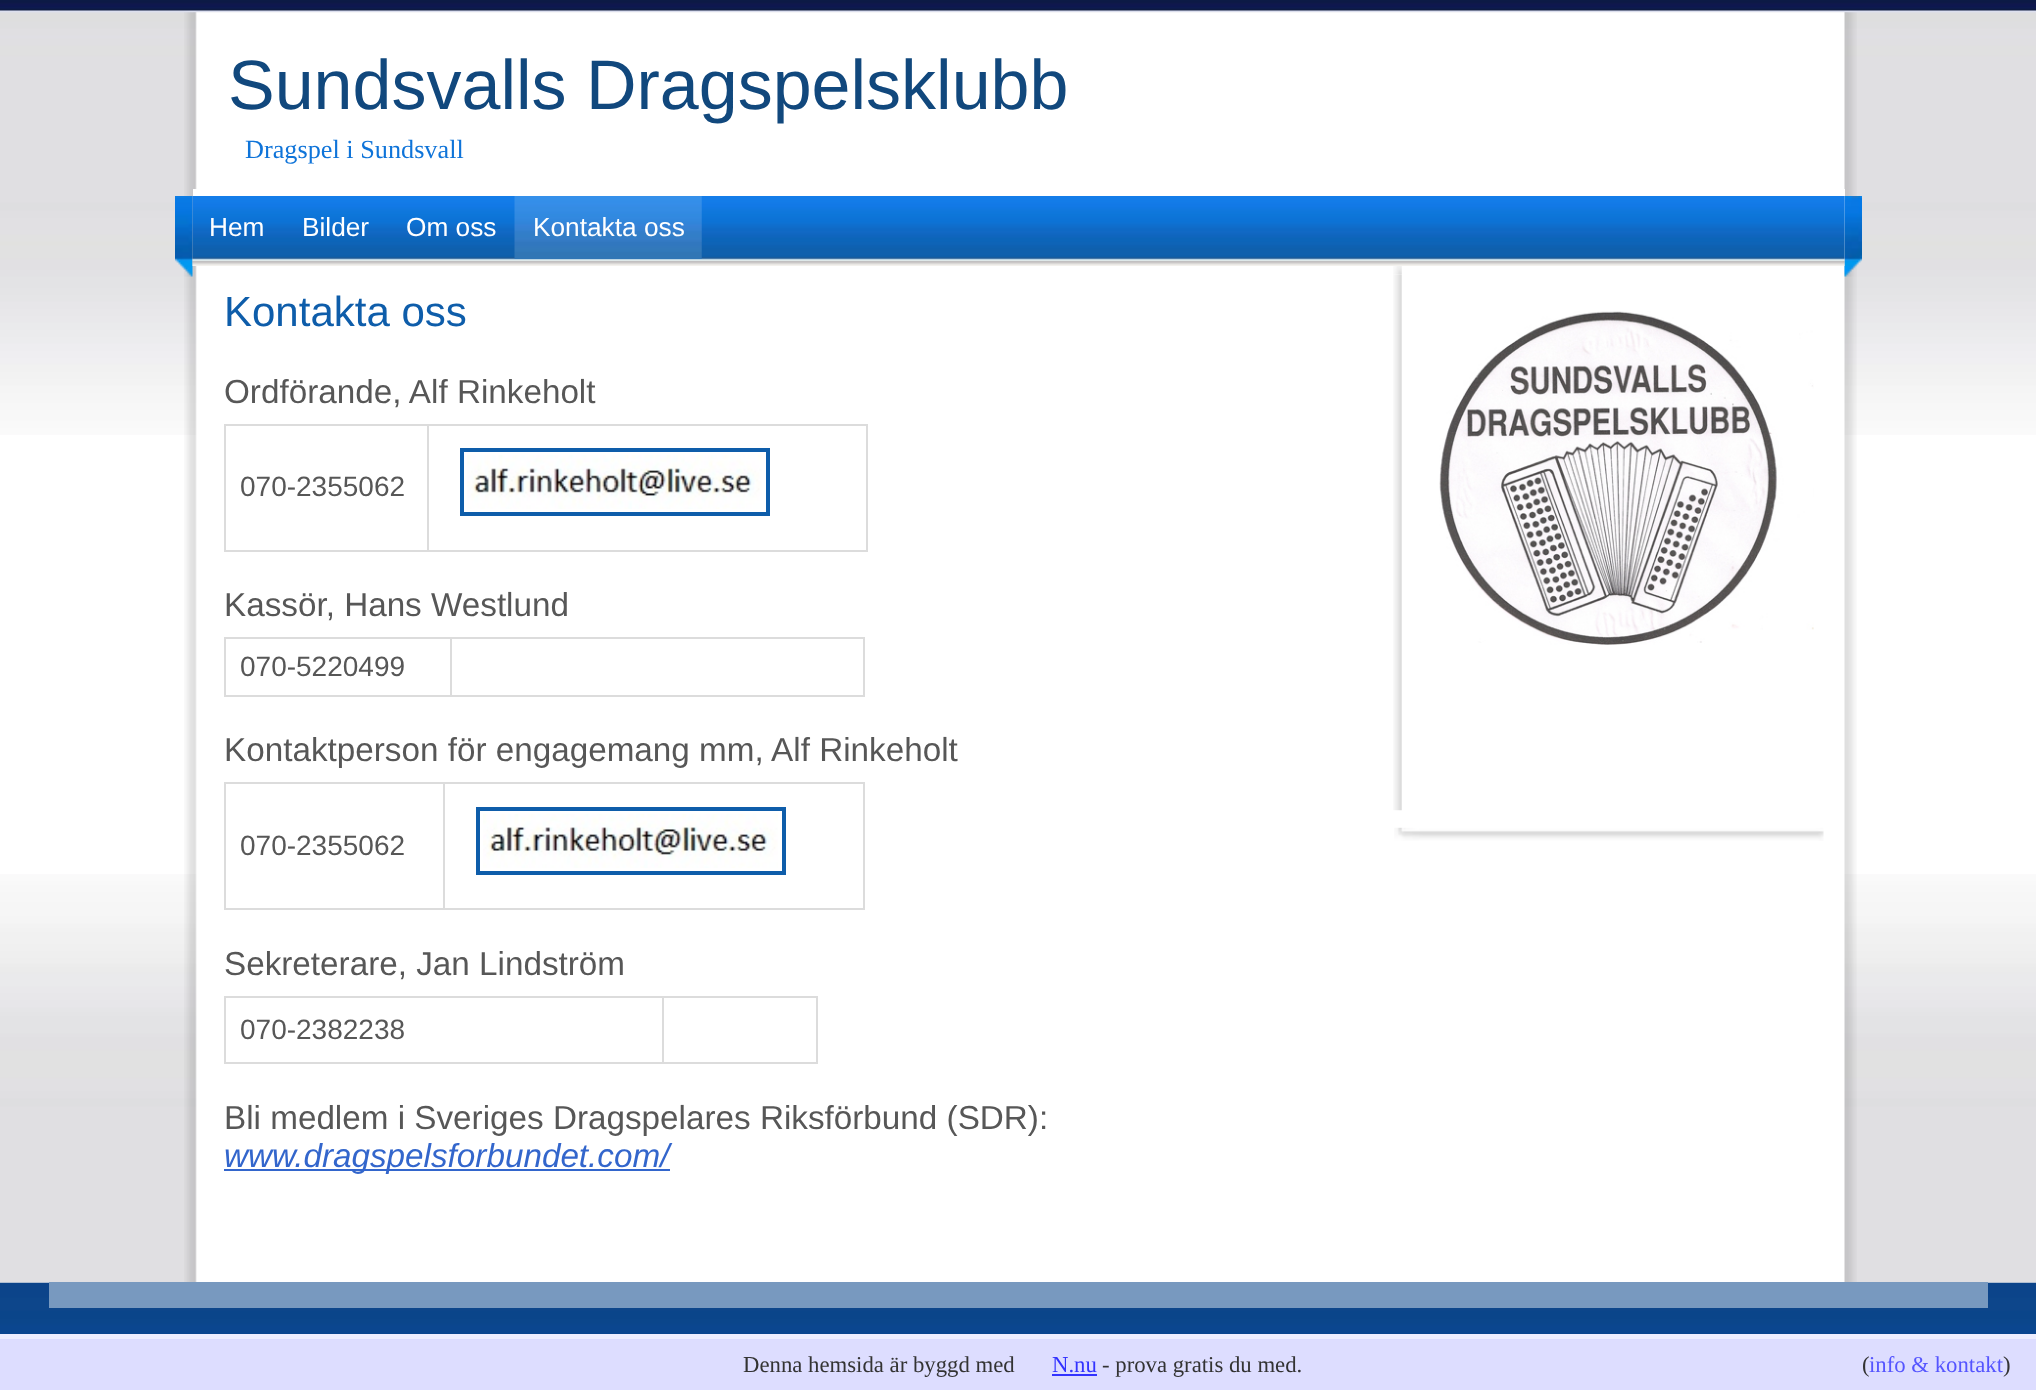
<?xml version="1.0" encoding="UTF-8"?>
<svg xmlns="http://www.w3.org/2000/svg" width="2036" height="1390">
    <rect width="100%" height="100%" fill="#FFFFFF"/>
    <image x="0" y="0" width="2036" height="435" href="img_01.png"/>
    <image x="0" y="874" width="2036" height="409" href="img_02.png"/>
    <image x="184" y="12" width="1673" height="1270" href="img_03.png"/>
    <text x="228" y="109" font-family="Liberation Sans" font-size="70" fill="#11487D">Sundsvalls Dragspelsklubb</text>
    <text x="245" y="158" font-family="Liberation Serif" font-size="26.25" fill="#0F74D9">Dragspel i Sundsvall</text>
    <rect x="193" y="189" width="1652" height="70" fill="#FFFFFF"/>
    <image x="175" y="196" width="18" height="81" href="img_04.png"/>
    <image x="1844" y="196" width="18" height="81" href="img_07.png"/>
    <image x="192" y="196" width="1653" height="70" href="img_05.png"/>
    <text x="209" y="236" font-family="Liberation Sans" font-size="26.25" fill="#FFFFFF">Hem</text>
    <text x="302" y="236" font-family="Liberation Sans" font-size="26.25" fill="#FFFFFF">Bilder</text>
    <text x="406" y="236" font-family="Liberation Sans" font-size="26.25" fill="#FFFFFF">Om oss</text>
    <image x="514" y="196" width="188" height="63" href="img_06.png"/>
    <text x="533" y="236" font-family="Liberation Sans" font-size="26.25" fill="#FFFFFF">Kontakta oss</text>
    <text x="224" y="326" font-family="Liberation Sans" font-size="42" fill="#0E5DAA">Kontakta oss</text>
    <text x="224" y="403" font-family="Liberation Sans" font-size="33.25" fill="#575757">Ordförande, Alf Rinkeholt</text>
    <rect x="224" y="424" width="644" height="2" fill="#DCDCDC"/>
    <rect x="866" y="424" width="2" height="127" fill="#DCDCDC"/>
    <rect x="224" y="550" width="644" height="2" fill="#DCDCDC"/>
    <rect x="224" y="424" width="2" height="127" fill="#DCDCDC"/>
    <text x="240" y="496" font-family="Liberation Sans" font-size="28" fill="#575757">070-2355062</text>
    <rect x="427" y="424" width="2" height="127" fill="#DCDCDC"/>
    <rect x="462" y="450" width="306" height="64" fill="none" stroke="#0E5DAA" stroke-width="4"/>
    <image x="467" y="455" width="295" height="54" href="img_08.png"/>
    <text x="224" y="616" font-family="Liberation Sans" font-size="33.25" fill="#575757">Kassör, Hans Westlund</text>
    <rect x="224" y="637" width="641" height="2" fill="#DCDCDC"/>
    <rect x="863" y="637" width="2" height="60" fill="#DCDCDC"/>
    <rect x="224" y="695" width="641" height="2" fill="#DCDCDC"/>
    <rect x="224" y="637" width="2" height="60" fill="#DCDCDC"/>
    <text x="240" y="676" font-family="Liberation Sans" font-size="28" fill="#575757">070-5220499</text>
    <rect x="450" y="637" width="2" height="60" fill="#DCDCDC"/>
    <text x="224" y="761" font-family="Liberation Sans" font-size="33.25" fill="#575757">Kontaktperson för engagemang mm, Alf Rinkeholt</text>
    <rect x="224" y="782" width="641" height="2" fill="#DCDCDC"/>
    <rect x="863" y="782" width="2" height="128" fill="#DCDCDC"/>
    <rect x="224" y="908" width="641" height="2" fill="#DCDCDC"/>
    <rect x="224" y="782" width="2" height="128" fill="#DCDCDC"/>
    <text x="240" y="855" font-family="Liberation Sans" font-size="28" fill="#575757">070-2355062</text>
    <rect x="443" y="782" width="2" height="128" fill="#DCDCDC"/>
    <rect x="478" y="809" width="306" height="64" fill="none" stroke="#0E5DAA" stroke-width="4"/>
    <image x="483" y="814" width="295" height="54" href="img_09.png"/>
    <text x="224" y="975" font-family="Liberation Sans" font-size="33.25" fill="#575757">Sekreterare, Jan Lindström</text>
    <rect x="224" y="996" width="593" height="2" fill="#DCDCDC"/>
    <rect x="816" y="996" width="2" height="68" fill="#DCDCDC"/>
    <rect x="224" y="1062" width="593" height="2" fill="#DCDCDC"/>
    <rect x="224" y="996" width="2" height="68" fill="#DCDCDC"/>
    <text x="240" y="1039" font-family="Liberation Sans" font-size="28" fill="#575757">070-2382238</text>
    <rect x="662" y="996" width="2" height="68" fill="#DCDCDC"/>
    <text x="224" y="1129" font-family="Liberation Sans" font-size="33.25" fill="#575757">Bli medlem i Sveriges Dragspelares Riksförbund (SDR):</text>
    <rect x="224" y="1169" width="446" height="2" fill="#3366CC"/>
    <text x="224" y="1167" font-family="Liberation Sans" font-size="33.25" font-style="italic" fill="#3366CC">www.dragspelsforbundet.com/</text>
    <image x="1393" y="266" width="9" height="9" href="img_10.png"/>
    <image x="1393" y="275" width="9" height="536" href="img_11.png"/>
    <image x="1439" y="311" width="375" height="334" href="img_12.png"/>
    <image x="1394" y="827" width="430" height="14" href="img_13.png"/>
    <image x="0" y="1282" width="2036" height="52" href="img_14.png"/>
    <rect x="49" y="1282" width="1939" height="26" fill="#7899BF"/>
    <rect x="0" y="1339" width="2036" height="51" fill="#DDDDFF"/>
    <rect x="0" y="1334" width="2036" height="5" fill="#EEEEFF"/>
    <text x="743" y="1372" font-family="Liberation Serif" font-size="22.75" fill="#333333">Denna hemsida är byggd med</text>
    <text x="1052" y="1372" font-family="Liberation Serif" font-size="22.75" fill="#3333FF">N.nu</text>
    <rect x="1052" y="1374" width="45" height="2" fill="#3333FF"/>
    <text x="1102" y="1372" font-family="Liberation Serif" font-size="22.75" fill="#333333">- prova gratis du med.</text>
    <text x="1862" y="1372" font-family="Liberation Serif" font-size="22.75" fill="#333333">(</text>
    <text x="1869" y="1372" font-family="Liberation Serif" font-size="22.75" fill="#5555FF">info &amp; kontakt</text>
    <text x="2003" y="1372" font-family="Liberation Serif" font-size="22.75" fill="#333333">)</text>
</svg>
